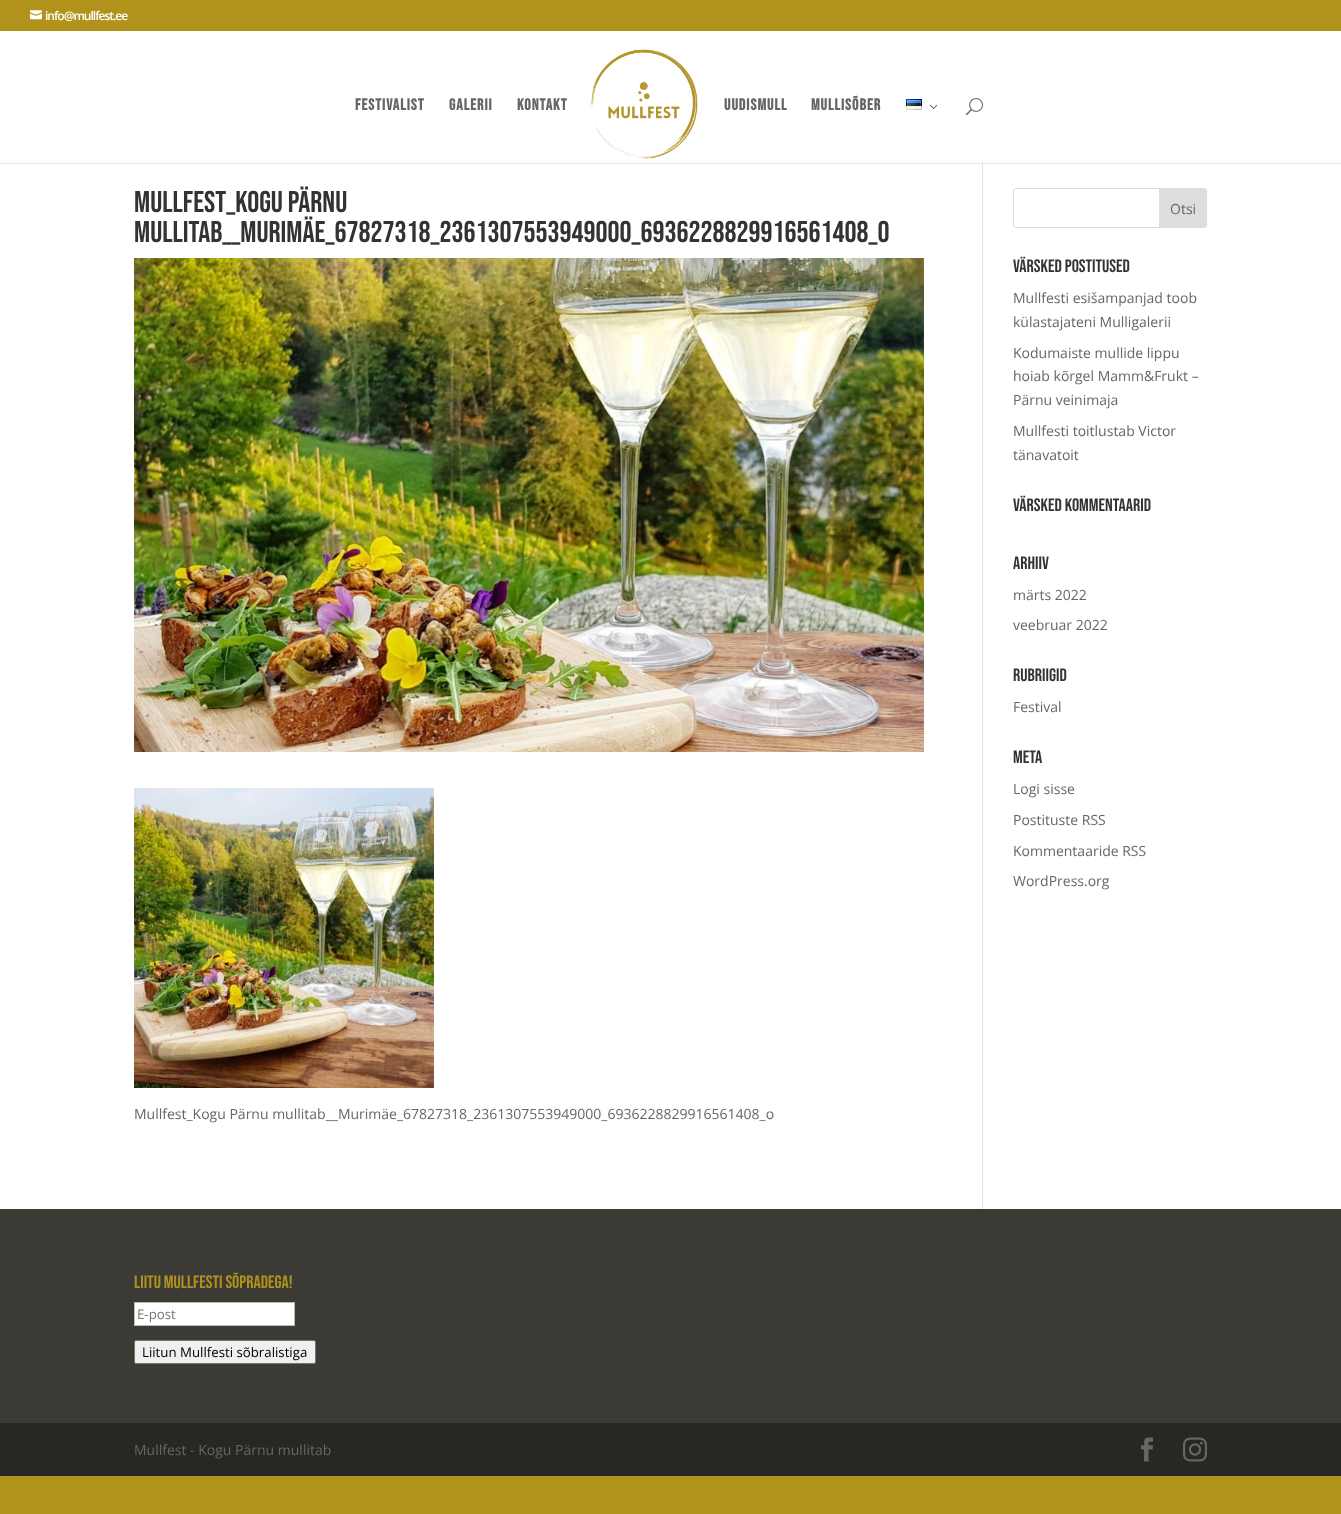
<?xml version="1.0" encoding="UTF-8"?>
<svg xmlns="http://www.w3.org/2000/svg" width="1341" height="1514">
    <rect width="100%" height="100%" fill="#B1931B"/>
    <image x="30" y="10" width="12" height="10" href="img_01.png"/>
    <text x="45" y="20" font-family="Open Sans" font-size="12" font-weight="600" letter-spacing="-1" fill="#FFFFFF">info@mullfest.ee</text>
    <rect x="0" y="31" width="1341" height="132" fill="#FFFFFF"/>
    <text x="355" y="110" font-family="Bebas Neue" font-size="16" font-weight="700" letter-spacing="1" fill="#666666">Festivalist</text>
    <text x="449" y="110" font-family="Bebas Neue" font-size="16" font-weight="700" letter-spacing="1" fill="#666666">Galerii</text>
    <text x="517" y="110" font-family="Bebas Neue" font-size="16" font-weight="700" letter-spacing="1" fill="#666666">Kontakt</text>
    <image x="590" y="49" width="108" height="110" href="img_02.png"/>
    <text x="724" y="110" font-family="Bebas Neue" font-size="16" font-weight="700" letter-spacing="1" fill="#666666">UUDISMULL</text>
    <text x="811" y="110" font-family="Bebas Neue" font-size="16" font-weight="700" letter-spacing="1" fill="#666666">mullisõber</text>
    <image x="906" y="99" width="16" height="11" href="img_03.png"/>
    <image x="929" y="104" width="9" height="5" href="img_04.png"/>
    <image x="966" y="98" width="17" height="18" href="img_05.png"/>
    <rect x="0" y="164" width="1341" height="1045" fill="#FFFFFF"/>
    <rect x="0" y="163" width="1341" height="1" fill="#E6E6E6"/>
    <rect x="982" y="164" width="1" height="1045" fill="#E2E2E2"/>
    <rect x="982" y="163" width="1" height="1" fill="#CBCBCB"/>
    <text font-family="Bebas Neue" font-size="30" fill="#333333">
        <tspan x="134" y="212">Mullfest_Kogu Pärnu</tspan>
        <tspan x="134" y="242">mullitab__Murimäe_67827318_2361307553949000_6936228829916561408_o</tspan>
    </text>
    <image x="134" y="258" width="790" height="494" href="img_06.png"/>
    <image x="134" y="788" width="300" height="300" href="img_07.png"/>
    <text x="134" y="1119" font-family="Open Sans" font-size="14" fill="#666666">Mullfest_Kogu Pärnu mullitab__Murimäe_67827318_2361307553949000_6936228829916561408_o</text>
    <rect x="1013.5" y="188.5" width="193" height="39" rx="2.5" fill="none" stroke="#DDDDDD"/>
    <path d="M 1159.5 188.5 H 1204 C 1205.5 188.5 1206.5 189.5 1206.5 191 V 225 C 1206.5 226.5 1205.5 227.5 1204 227.5 H 1159.5 Z" fill="#DDDDDD" stroke="#DDDDDD"/>
    <text x="1170" y="214" font-family="Open Sans" font-size="14" fill="#666666">Otsi</text>
    <text x="1013" y="272" font-family="Bebas Neue" font-size="18" fill="#333333">Värsked postitused</text>
    <text font-family="Open Sans" font-size="14" fill="#666666">
        <tspan x="1013" y="303">Mullfesti esišampanjad toob</tspan>
        <tspan x="1013" y="327">külastajateni Mulligalerii</tspan>
    </text>
    <text font-family="Open Sans" font-size="14" fill="#666666">
        <tspan x="1013" y="358">Kodumaiste mullide lippu</tspan>
        <tspan x="1013" y="381">hoiab kõrgel Mamm&amp;Frukt –</tspan>
        <tspan x="1013" y="405">Pärnu veinimaja</tspan>
    </text>
    <text font-family="Open Sans" font-size="14" fill="#666666">
        <tspan x="1013" y="436">Mullfesti toitlustab Victor</tspan>
        <tspan x="1013" y="460">tänavatoit</tspan>
    </text>
    <text x="1013" y="511" font-family="Bebas Neue" font-size="18" fill="#333333">Värsked kommentaarid</text>
    <text x="1013" y="569" font-family="Bebas Neue" font-size="18" fill="#333333">Arhiiv</text>
    <text x="1013" y="600" font-family="Open Sans" font-size="14" fill="#666666">märts 2022</text>
    <text x="1013" y="630" font-family="Open Sans" font-size="14" fill="#666666">veebruar 2022</text>
    <text x="1013" y="681" font-family="Bebas Neue" font-size="18" fill="#333333">Rubriigid</text>
    <text x="1013" y="712" font-family="Open Sans" font-size="14" fill="#666666">Festival</text>
    <text x="1013" y="763" font-family="Bebas Neue" font-size="18" fill="#333333">Meta</text>
    <text x="1013" y="794" font-family="Open Sans" font-size="14" fill="#666666">Logi sisse</text>
    <text x="1013" y="825" font-family="Open Sans" font-size="14" fill="#666666">Postituste RSS</text>
    <text x="1013" y="856" font-family="Open Sans" font-size="14" fill="#666666">Kommentaaride RSS</text>
    <text x="1013" y="886" font-family="Open Sans" font-size="14" fill="#666666">WordPress.org</text>
    <rect x="0" y="1209" width="1341" height="214" fill="#3C3A35"/>
    <text x="134" y="1288" font-family="Bebas Neue" font-size="18" fill="#B1931B">Liitu Mullfesti sõpradega!</text>
    <rect x="134.5" y="1302.5" width="160" height="23" fill="#FFFFFF" stroke="#BBBBBB"/>
    <text x="137" y="1319" font-family="Open Sans" font-size="13.25" fill="#757575">E-post</text>
    <rect x="134.5" y="1340.5" width="181" height="23" rx="1.5" fill="#EFEFEF" stroke="#767676"/>
    <text x="142" y="1357" font-family="Open Sans" font-size="13.25" fill="#000000">Liitun Mullfesti sõbralistiga</text>
    <rect x="0" y="1423" width="1341" height="53" fill="#292724"/>
    <text x="134" y="1455" font-family="Open Sans" font-size="14" fill="#666666">Mullfest - Kogu Pärnu mullitab</text>
    <image x="1141" y="1437" width="12" height="25" href="img_08.png"/>
    <image x="1183" y="1437" width="24" height="25" href="img_09.png"/>
</svg>
